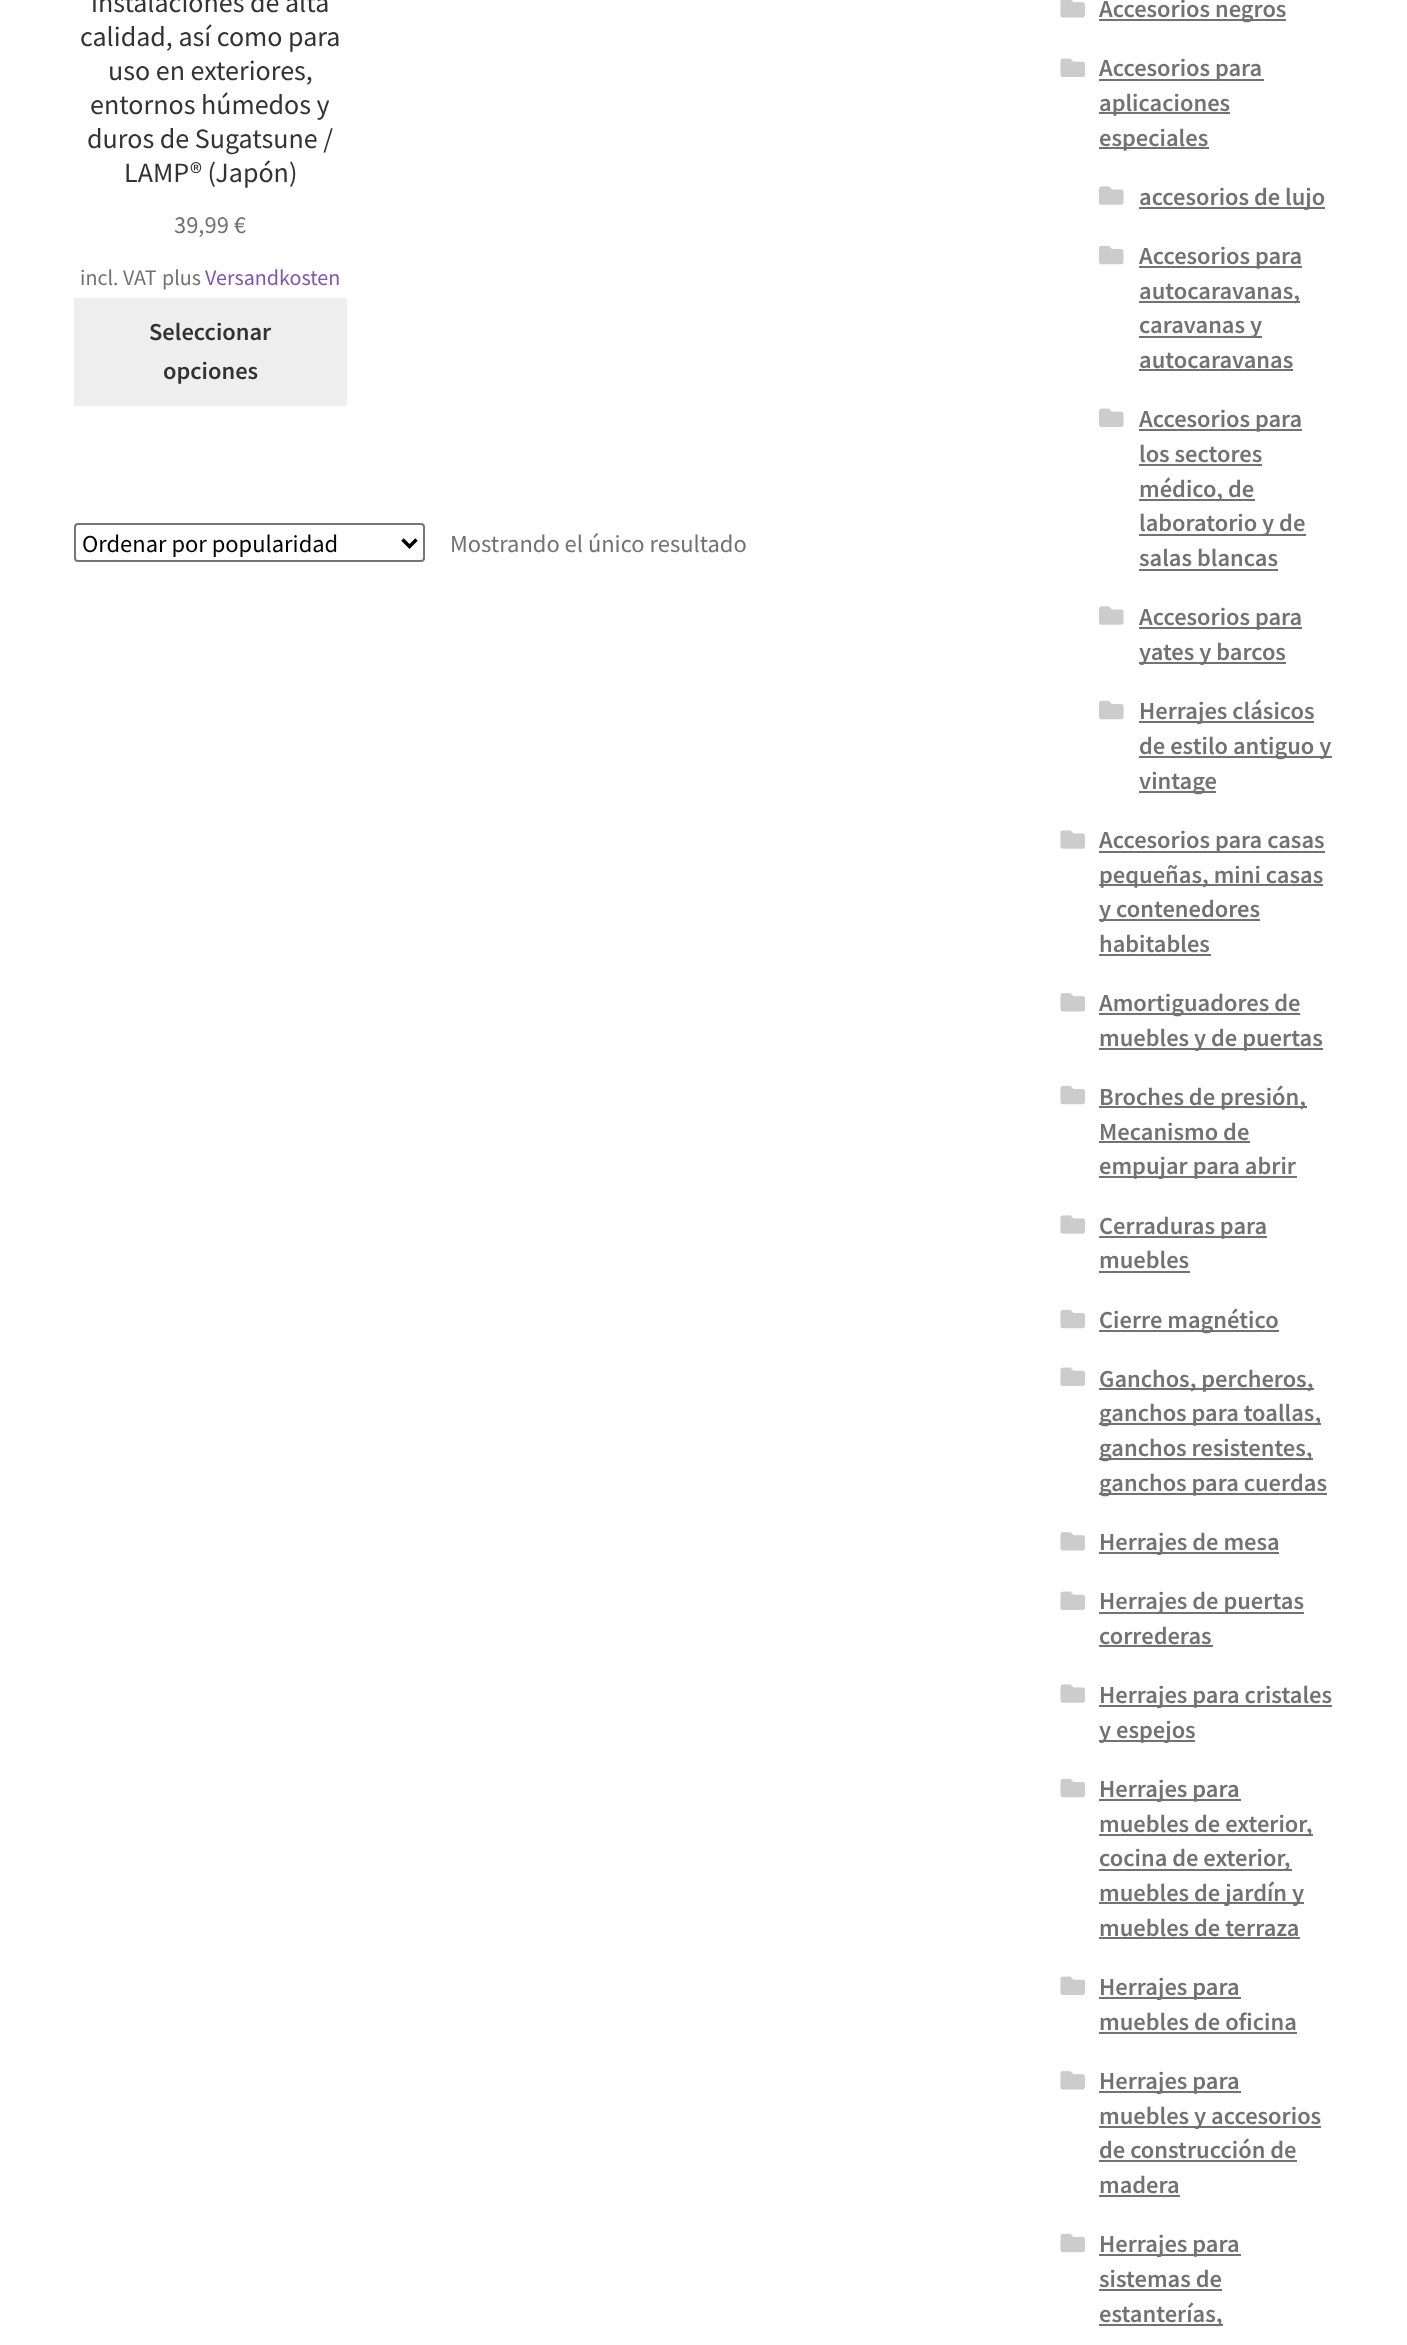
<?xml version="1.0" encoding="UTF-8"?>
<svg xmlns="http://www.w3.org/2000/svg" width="1407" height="2345">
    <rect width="100%" height="100%" fill="#FFFFFF"/>
    <text x="91" y="12" font-family="Source Sans Pro" font-size="28" fill="#333333">instalaciones de alta</text>
    <text x="80" y="46" font-family="Source Sans Pro" font-size="28" fill="#333333">calidad, así como para</text>
    <text x="108" y="80" font-family="Source Sans Pro" font-size="28" fill="#333333">uso en exteriores,</text>
    <text x="90" y="114" font-family="Source Sans Pro" font-size="28" fill="#333333">entornos húmedos y</text>
    <text x="87" y="148" font-family="Source Sans Pro" font-size="28" fill="#333333">duros de Sugatsune /</text>
    <text x="124" y="182" font-family="Source Sans Pro" font-size="28" fill="#333333">LAMP® (Japón)</text>
    <text x="174" y="233" font-family="Source Sans Pro" font-size="24.5" fill="#727272">39,99 €</text>
    <text x="80" y="285" font-family="Source Sans Pro" font-size="22" fill="#727272">incl. VAT</text>
    <text x="162" y="285" font-family="Source Sans Pro" font-size="22" fill="#727272">plus</text>
    <text x="205" y="285" font-family="Source Sans Pro" font-size="22" fill="#7F54B3">Versandkosten</text>
    <rect x="74" y="298" width="273" height="108" fill="#EEEEEE"/>
    <text x="149" y="340" font-family="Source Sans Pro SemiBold" font-size="24.5" font-weight="600" fill="#333333">Seleccionar</text>
    <text x="163" y="379" font-family="Source Sans Pro SemiBold" font-size="24.5" font-weight="600" fill="#333333">opciones</text>
    <rect x="75" y="524" width="349" height="37" rx="3" fill="none" stroke="#767676" stroke-width="2"/>
    <path d="M 402.5 539.5 L 409.5 546.5 L 416.5 539.5" fill="none" stroke="#000000" stroke-width="3.5"/>
    <text x="82" y="552" font-family="Source Sans Pro" font-size="24.5" fill="#000000">Ordenar por popularidad</text>
    <text x="450" y="552" font-family="Source Sans Pro" font-size="24.5" fill="#727272">Mostrando el único resultado</text>
    <image x="1060" y="0" width="25" height="18" href="img_01.png"/>
    <rect x="1099" y="19" width="187" height="2" fill="#727272"/>
    <text x="1099" y="17" font-family="Source Sans Pro SemiBold" font-size="24.5" font-weight="600" fill="#727272">Accesorios negros</text>
    <image x="1060" y="58" width="25" height="19" href="img_02.png"/>
    <rect x="1099" y="79" width="165" height="2" fill="#727272"/>
    <text x="1099" y="76" font-family="Source Sans Pro SemiBold" font-size="24.5" font-weight="600" fill="#727272">Accesorios para</text>
    <rect x="1099" y="112" width="131" height="2" fill="#727272"/>
    <text x="1099" y="111" font-family="Source Sans Pro SemiBold" font-size="24.5" font-weight="600" fill="#727272">aplicaciones</text>
    <rect x="1099" y="147" width="110" height="2" fill="#727272"/>
    <text x="1099" y="146" font-family="Source Sans Pro SemiBold" font-size="24.5" font-weight="600" fill="#727272">especiales</text>
    <image x="1099" y="186" width="25" height="19" href="img_03.png"/>
    <rect x="1139" y="207" width="186" height="2" fill="#727272"/>
    <text x="1139" y="205" font-family="Source Sans Pro SemiBold" font-size="24.5" font-weight="600" fill="#727272">accesorios de lujo</text>
    <image x="1099" y="245" width="25" height="20" href="img_04.png"/>
    <rect x="1139" y="266" width="163" height="2" fill="#727272"/>
    <text x="1139" y="264" font-family="Source Sans Pro SemiBold" font-size="24.5" font-weight="600" fill="#727272">Accesorios para</text>
    <rect x="1139" y="301" width="161" height="2" fill="#727272"/>
    <text x="1139" y="299" font-family="Source Sans Pro SemiBold" font-size="24.5" font-weight="600" fill="#727272">autocaravanas,</text>
    <rect x="1139" y="336" width="123" height="2" fill="#727272"/>
    <text font-family="Source Sans Pro SemiBold" font-size="24.5" font-weight="600" fill="#727272">
        <tspan x="1139" y="333">caravanas y</tspan>
        <tspan x="1139" y="368">autocaravanas</tspan>
    </text>
    <rect x="1139" y="369" width="154" height="2" fill="#727272"/>
    <image x="1099" y="408" width="25" height="19" href="img_05.png"/>
    <rect x="1139" y="429" width="163" height="2" fill="#727272"/>
    <text font-family="Source Sans Pro SemiBold" font-size="24.5" font-weight="600" fill="#727272">
        <tspan x="1139" y="427">Accesorios para</tspan>
        <tspan x="1139" y="462">los sectores</tspan>
    </text>
    <rect x="1139" y="464" width="123" height="2" fill="#727272"/>
    <rect x="1139" y="499" width="116" height="2" fill="#727272"/>
    <text x="1139" y="497" font-family="Source Sans Pro SemiBold" font-size="24.5" font-weight="600" fill="#727272">médico, de</text>
    <rect x="1139" y="534" width="167" height="2" fill="#727272"/>
    <text font-family="Source Sans Pro SemiBold" font-size="24.5" font-weight="600" fill="#727272">
        <tspan x="1139" y="531">laboratorio y de</tspan>
        <tspan x="1139" y="566">salas blancas</tspan>
    </text>
    <rect x="1139" y="569" width="139" height="2" fill="#727272"/>
    <image x="1099" y="606" width="25" height="19" href="img_03.png"/>
    <rect x="1139" y="627" width="163" height="2" fill="#727272"/>
    <text x="1139" y="625" font-family="Source Sans Pro SemiBold" font-size="24.5" font-weight="600" fill="#727272">Accesorios para</text>
    <rect x="1139" y="662" width="147" height="2" fill="#727272"/>
    <text x="1139" y="660" font-family="Source Sans Pro SemiBold" font-size="24.5" font-weight="600" fill="#727272">yates y barcos</text>
    <image x="1099" y="700" width="25" height="20" href="img_04.png"/>
    <rect x="1139" y="721" width="175" height="2" fill="#727272"/>
    <text x="1139" y="719" font-family="Source Sans Pro SemiBold" font-size="24.5" font-weight="600" fill="#727272">Herrajes clásicos</text>
    <rect x="1139" y="756" width="193" height="2" fill="#727272"/>
    <text x="1139" y="754" font-family="Source Sans Pro SemiBold" font-size="24.5" font-weight="600" fill="#727272">de estilo antiguo y</text>
    <rect x="1139" y="791" width="77" height="2" fill="#727272"/>
    <text x="1139" y="789" font-family="Source Sans Pro SemiBold" font-size="24.5" font-weight="600" fill="#727272">vintage</text>
    <image x="1060" y="830" width="25" height="19" href="img_06.png"/>
    <rect x="1099" y="851" width="226" height="2" fill="#727272"/>
    <text x="1099" y="848" font-family="Source Sans Pro SemiBold" font-size="24.5" font-weight="600" fill="#727272">Accesorios para casas</text>
    <rect x="1099" y="884" width="224" height="2" fill="#727272"/>
    <text x="1099" y="883" font-family="Source Sans Pro SemiBold" font-size="24.5" font-weight="600" fill="#727272">pequeñas, mini casas</text>
    <rect x="1099" y="919" width="161" height="2" fill="#727272"/>
    <text font-family="Source Sans Pro SemiBold" font-size="24.5" font-weight="600" fill="#727272">
        <tspan x="1099" y="917">y contenedores</tspan>
        <tspan x="1099" y="952">habitables</tspan>
    </text>
    <rect x="1099" y="954" width="112" height="2" fill="#727272"/>
    <image x="1060" y="993" width="25" height="19" href="img_07.png"/>
    <rect x="1099" y="1013" width="201" height="2" fill="#727272"/>
    <text x="1099" y="1011" font-family="Source Sans Pro SemiBold" font-size="24.5" font-weight="600" fill="#727272">Amortiguadores de</text>
    <rect x="1099" y="1048" width="224" height="2" fill="#727272"/>
    <text x="1099" y="1046" font-family="Source Sans Pro SemiBold" font-size="24.5" font-weight="600" fill="#727272">muebles y de puertas</text>
    <image x="1060" y="1085" width="25" height="20" href="img_08.png"/>
    <rect x="1099" y="1106" width="208" height="2" fill="#727272"/>
    <text font-family="Source Sans Pro SemiBold" font-size="24.5" font-weight="600" fill="#727272">
        <tspan x="1099" y="1105">Broches de presión,</tspan>
        <tspan x="1099" y="1140">Mecanismo de</tspan>
    </text>
    <rect x="1099" y="1141" width="151" height="2" fill="#727272"/>
    <rect x="1099" y="1176" width="198" height="2" fill="#727272"/>
    <text x="1099" y="1174" font-family="Source Sans Pro SemiBold" font-size="24.5" font-weight="600" fill="#727272">empujar para abrir</text>
    <image x="1060" y="1215" width="25" height="19" href="img_06.png"/>
    <rect x="1099" y="1236" width="168" height="2" fill="#727272"/>
    <text font-family="Source Sans Pro SemiBold" font-size="24.5" font-weight="600" fill="#727272">
        <tspan x="1099" y="1234">Cerraduras para</tspan>
        <tspan x="1099" y="1268">muebles</tspan>
    </text>
    <rect x="1099" y="1271" width="91" height="2" fill="#727272"/>
    <image x="1060" y="1309" width="25" height="20" href="img_08.png"/>
    <rect x="1099" y="1330" width="180" height="2" fill="#727272"/>
    <text x="1099" y="1328" font-family="Source Sans Pro SemiBold" font-size="24.5" font-weight="600" fill="#727272">Cierre magnético</text>
    <image x="1060" y="1367" width="25" height="19" href="img_02.png"/>
    <rect x="1099" y="1388" width="215" height="2" fill="#727272"/>
    <text x="1099" y="1387" font-family="Source Sans Pro SemiBold" font-size="24.5" font-weight="600" fill="#727272">Ganchos, percheros,</text>
    <rect x="1099" y="1423" width="222" height="2" fill="#727272"/>
    <text x="1099" y="1421" font-family="Source Sans Pro SemiBold" font-size="24.5" font-weight="600" fill="#727272">ganchos para toallas,</text>
    <rect x="1099" y="1458" width="214" height="2" fill="#727272"/>
    <text x="1099" y="1456" font-family="Source Sans Pro SemiBold" font-size="24.5" font-weight="600" fill="#727272">ganchos resistentes,</text>
    <rect x="1099" y="1493" width="228" height="2" fill="#727272"/>
    <text x="1099" y="1491" font-family="Source Sans Pro SemiBold" font-size="24.5" font-weight="600" fill="#727272">ganchos para cuerdas</text>
    <image x="1060" y="1532" width="25" height="19" href="img_07.png"/>
    <rect x="1099" y="1552" width="180" height="2" fill="#727272"/>
    <text x="1099" y="1550" font-family="Source Sans Pro SemiBold" font-size="24.5" font-weight="600" fill="#727272">Herrajes de mesa</text>
    <image x="1060" y="1591" width="25" height="19" href="img_02.png"/>
    <rect x="1099" y="1612" width="205" height="2" fill="#727272"/>
    <text font-family="Source Sans Pro SemiBold" font-size="24.5" font-weight="600" fill="#727272">
        <tspan x="1099" y="1609">Herrajes de puertas</tspan>
        <tspan x="1099" y="1644">correderas</tspan>
    </text>
    <rect x="1099" y="1645" width="114" height="2" fill="#727272"/>
    <image x="1060" y="1684" width="25" height="19" href="img_06.png"/>
    <rect x="1099" y="1705" width="233" height="2" fill="#727272"/>
    <text x="1099" y="1703" font-family="Source Sans Pro SemiBold" font-size="24.5" font-weight="600" fill="#727272">Herrajes para cristales</text>
    <rect x="1099" y="1740" width="96" height="2" fill="#727272"/>
    <text x="1099" y="1738" font-family="Source Sans Pro SemiBold" font-size="24.5" font-weight="600" fill="#727272">y espejos</text>
    <image x="1060" y="1778" width="25" height="20" href="img_08.png"/>
    <rect x="1099" y="1799" width="142" height="2" fill="#727272"/>
    <text x="1099" y="1797" font-family="Source Sans Pro SemiBold" font-size="24.5" font-weight="600" fill="#727272">Herrajes para</text>
    <rect x="1099" y="1834" width="214" height="2" fill="#727272"/>
    <text x="1099" y="1832" font-family="Source Sans Pro SemiBold" font-size="24.5" font-weight="600" fill="#727272">muebles de exterior,</text>
    <rect x="1099" y="1869" width="193" height="2" fill="#727272"/>
    <text x="1099" y="1866" font-family="Source Sans Pro SemiBold" font-size="24.5" font-weight="600" fill="#727272">cocina de exterior,</text>
    <rect x="1099" y="1902" width="205" height="2" fill="#727272"/>
    <text font-family="Source Sans Pro SemiBold" font-size="24.5" font-weight="600" fill="#727272">
        <tspan x="1099" y="1901">muebles de jardín y</tspan>
        <tspan x="1099" y="1936">muebles de terraza</tspan>
    </text>
    <rect x="1099" y="1937" width="201" height="2" fill="#727272"/>
    <image x="1060" y="1976" width="25" height="19" href="img_02.png"/>
    <rect x="1099" y="1997" width="142" height="2" fill="#727272"/>
    <text font-family="Source Sans Pro SemiBold" font-size="24.5" font-weight="600" fill="#727272">
        <tspan x="1099" y="1995">Herrajes para</tspan>
        <tspan x="1099" y="2030">muebles de oficina</tspan>
    </text>
    <rect x="1099" y="2032" width="198" height="2" fill="#727272"/>
    <image x="1060" y="2071" width="25" height="19" href="img_07.png"/>
    <rect x="1099" y="2091" width="142" height="2" fill="#727272"/>
    <text x="1099" y="2089" font-family="Source Sans Pro SemiBold" font-size="24.5" font-weight="600" fill="#727272">Herrajes para</text>
    <rect x="1099" y="2126" width="222" height="2" fill="#727272"/>
    <text font-family="Source Sans Pro SemiBold" font-size="24.5" font-weight="600" fill="#727272">
        <tspan x="1099" y="2124">muebles y accesorios</tspan>
        <tspan x="1099" y="2158">de construcción de</tspan>
    </text>
    <rect x="1099" y="2160" width="198" height="2" fill="#727272"/>
    <text x="1099" y="2193" font-family="Source Sans Pro SemiBold" font-size="24.5" font-weight="600" fill="#727272">madera</text>
    <rect x="1099" y="2195" width="81" height="2" fill="#727272"/>
    <image x="1060" y="2233" width="25" height="20" href="img_08.png"/>
    <rect x="1099" y="2254" width="142" height="2" fill="#727272"/>
    <text font-family="Source Sans Pro SemiBold" font-size="24.5" font-weight="600" fill="#727272">
        <tspan x="1099" y="2252">Herrajes para</tspan>
        <tspan x="1099" y="2287">sistemas de</tspan>
    </text>
    <rect x="1099" y="2289" width="123" height="2" fill="#727272"/>
    <rect x="1099" y="2324" width="124" height="2" fill="#727272"/>
    <text x="1099" y="2322" font-family="Source Sans Pro SemiBold" font-size="24.5" font-weight="600" fill="#727272">estanterías,</text>
</svg>
